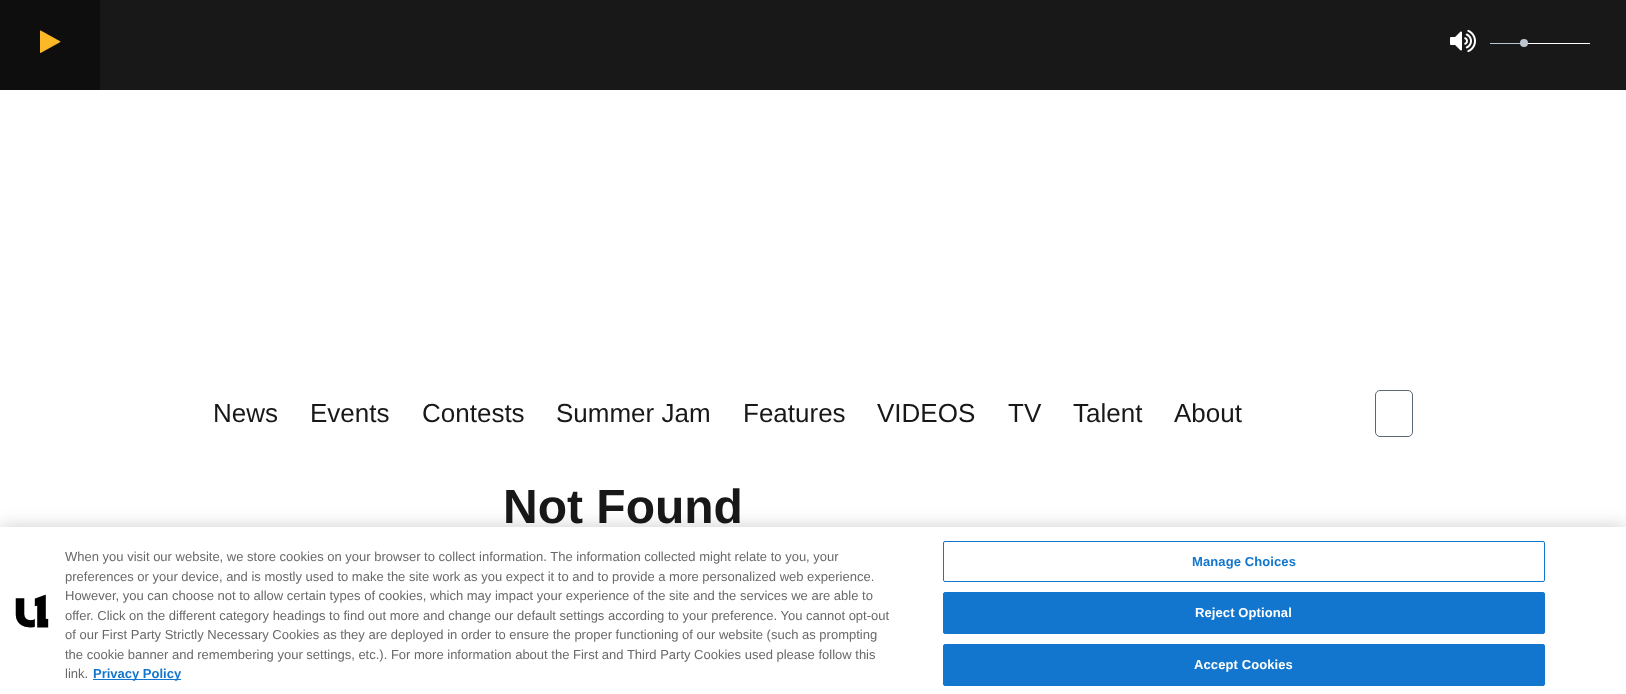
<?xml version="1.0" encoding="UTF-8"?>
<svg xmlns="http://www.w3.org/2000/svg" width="1626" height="694">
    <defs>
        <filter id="blur1" x="-50%" y="-200%" width="200%" height="500%"><feGaussianBlur stdDeviation="9"/></filter>
    </defs>
    <rect width="100%" height="100%" fill="#FFFFFF"/>
    <rect x="100" y="0" width="1526" height="90" fill="#181818"/>
    <rect x="0" y="0" width="100" height="90" fill="#0E0E0E"/>
    <image x="40" y="30" width="21" height="23" href="img_01.png"/>
    <image x="1450" y="29" width="26" height="24" href="img_02.png"/>
    <rect x="1490" y="43" width="100" height="1" fill="#BDC6CE"/>
    <rect x="1520" y="43" width="70" height="1" rx="0.5" fill="#FFFFFF"/>
    <circle cx="1524" cy="43" r="4" fill="#BDC6CE"/>
    <text x="213" y="422" font-family="Liberation Sans" font-size="26" fill="#181818">News</text>
    <text x="310" y="422" font-family="Liberation Sans" font-size="26" fill="#181818">Events</text>
    <text x="422" y="422" font-family="Liberation Sans" font-size="26" fill="#181818">Contests</text>
    <text x="556" y="422" font-family="Liberation Sans" font-size="26" fill="#181818">Summer Jam</text>
    <text x="743" y="422" font-family="Liberation Sans" font-size="26" fill="#181818">Features</text>
    <text x="877" y="422" font-family="Liberation Sans" font-size="26" fill="#181818">VIDEOS</text>
    <text x="1008" y="422" font-family="Liberation Sans" font-size="26" fill="#181818">TV</text>
    <text x="1073" y="422" font-family="Liberation Sans" font-size="26" fill="#181818">Talent</text>
    <text x="1174" y="422" font-family="Liberation Sans" font-size="26" fill="#181818">About</text>
    <rect x="1375.5" y="390.5" width="37" height="46" rx="4.5" fill="none" stroke="#5A6875"/>
    <text x="503" y="523" font-family="Liberation Sans" font-size="48" font-weight="700" fill="#181818">Not Found</text>
    <rect x="0" y="527" width="1626" height="167" fill="#000000" fill-opacity="0.2" filter="url(#blur1)"/>
    <rect x="0" y="527" width="1626" height="167" fill="#FFFFFF"/>
    <image x="15" y="594" width="34" height="34" href="img_03.png"/>
    <text font-family="Liberation Sans" font-size="13" fill="#696969">
        <tspan x="65" y="561">When you visit our website, we store cookies on your browser to collect information. The information collected might relate to you, your</tspan>
        <tspan x="65" y="581">preferences or your device, and is mostly used to make the site work as you expect it to and to provide a more personalized web experience.</tspan>
        <tspan x="65" y="600">However, you can choose not to allow certain types of cookies, which may impact your experience of the site and the services we are able to</tspan>
        <tspan x="65" y="620">offer. Click on the different category headings to find out more and change our default settings according to your preference. You cannot opt-out</tspan>
        <tspan x="65" y="639">of our First Party Strictly Necessary Cookies as they are deployed in order to ensure the proper functioning of our website (such as prompting</tspan>
        <tspan x="65" y="659">the cookie banner and remembering your settings, etc.). For more information about the First and Third Party Cookies used please follow this</tspan>
        <tspan x="65" y="678">link.</tspan>
    </text>
    <rect x="93" y="679" width="88" height="1" fill="#1276CE"/>
    <text x="93" y="678" font-family="Liberation Sans" font-size="13" font-weight="700" fill="#1276CE">Privacy Policy</text>
    <rect x="943.5" y="541.5" width="601" height="40" rx="1.5" fill="none" stroke="#1276CE"/>
    <text x="1192" y="566" font-family="Liberation Sans" font-size="13" font-weight="700" letter-spacing="0.1" fill="#1276CE">Manage Choices</text>
    <rect x="943.5" y="592.5" width="601" height="41" rx="1.5" fill="#1276CE" stroke="#1276CE"/>
    <text x="1195" y="617" font-family="Liberation Sans" font-size="13" font-weight="700" letter-spacing="0.1" fill="#FFFFFF">Reject Optional</text>
    <rect x="943.5" y="644.5" width="601" height="41" rx="1.5" fill="#1276CE" stroke="#1276CE"/>
    <text x="1194" y="669" font-family="Liberation Sans" font-size="13" font-weight="700" letter-spacing="0.1" fill="#FFFFFF">Accept Cookies</text>
</svg>
